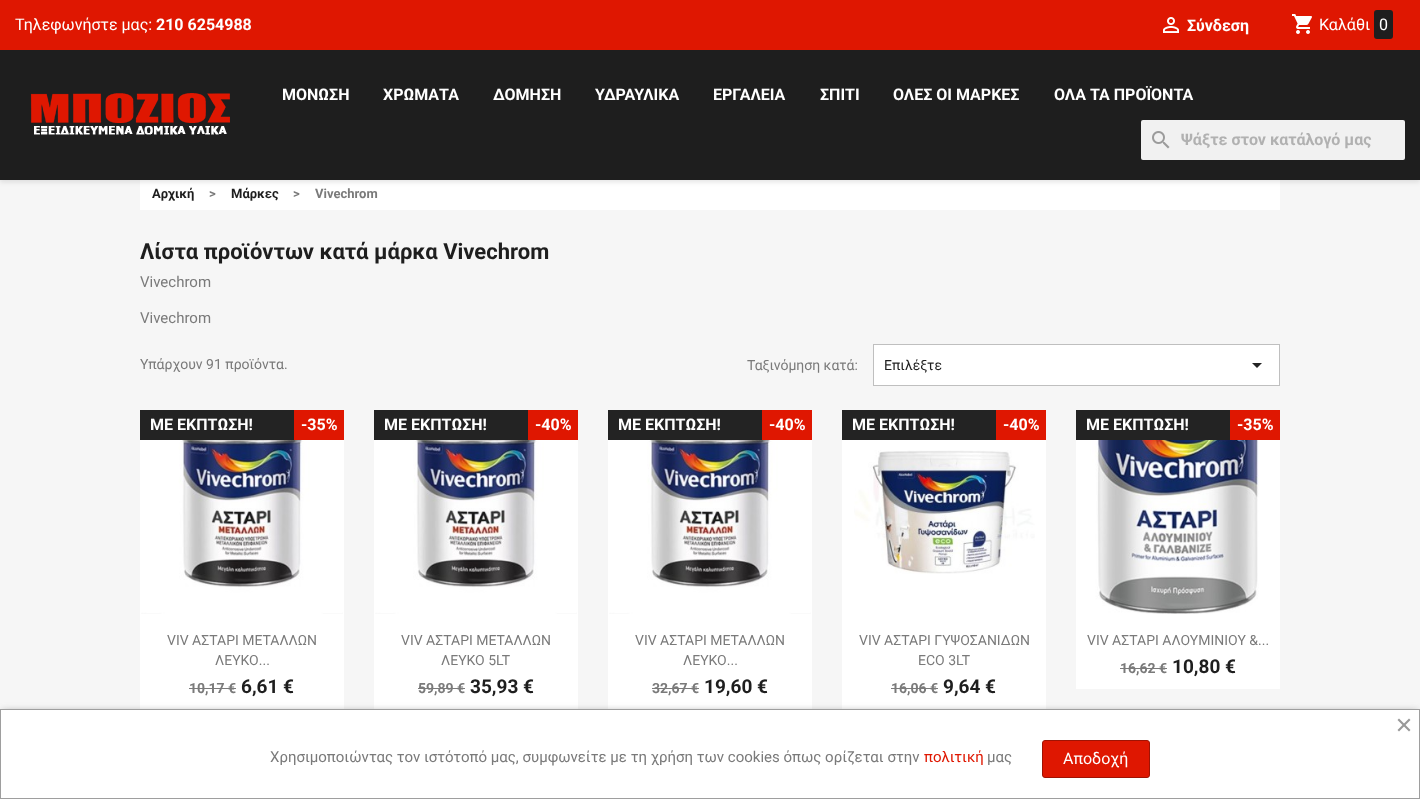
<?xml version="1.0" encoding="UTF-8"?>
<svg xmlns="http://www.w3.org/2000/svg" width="1420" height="799">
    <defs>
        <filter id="blur1" x="-50%" y="-200%" width="200%" height="500%"><feGaussianBlur stdDeviation="2.5"/></filter>
        <filter id="blur2" x="-50%" y="-200%" width="200%" height="500%"><feGaussianBlur stdDeviation="3.5"/></filter>
    </defs>
    <rect width="100%" height="100%" fill="#F6F6F6"/>
    <rect x="140" y="180" width="1140" height="30" fill="#FFFFFF"/>
    <rect x="0" y="2" width="1420" height="180" fill="#000000" fill-opacity="0.11" filter="url(#blur1)"/>
    <rect x="0" y="0" width="1420" height="50" fill="#DF1701"/>
    <text x="15" y="30" font-family="Roboto" font-size="16" fill="#FFFFFF">Τηλεφωνήστε μας:</text>
    <text x="156" y="30" font-family="Roboto" font-size="16" font-weight="700" fill="#FFFFFF">210 6254988</text>
    <image x="1163" y="17" width="16" height="16" href="img_01.png"/>
    <text x="1187" y="31" font-family="Roboto" font-size="16" font-weight="700" fill="#FFFFFF">Σύνδεση</text>
    <image x="1292" y="14" width="20" height="20" href="img_02.png"/>
    <text x="1319" y="30" font-family="Roboto" font-size="16" fill="#FFFFFF">Καλάθι</text>
    <rect x="1374" y="10" width="19" height="29" rx="3" fill="#1E1E1E"/>
    <text x="1379" y="30" font-family="Roboto" font-size="16" fill="#FFFFFF">0</text>
    <rect x="0" y="50" width="1420" height="130" fill="#1E1E1E"/>
    <image x="30" y="93" width="200" height="42" href="img_03.png"/>
    <text x="282" y="100" font-family="Roboto" font-size="16" font-weight="700" fill="#FFFFFF">ΜΟΝΩΣΗ</text>
    <text x="383" y="100" font-family="Roboto" font-size="16" font-weight="700" fill="#FFFFFF">ΧΡΩΜΑΤΑ</text>
    <text x="493" y="100" font-family="Roboto" font-size="16" font-weight="700" fill="#FFFFFF">ΔΟΜΗΣΗ</text>
    <text x="595" y="100" font-family="Roboto" font-size="16" font-weight="700" fill="#FFFFFF">ΥΔΡΑΥΛΙΚΑ</text>
    <text x="713" y="100" font-family="Roboto" font-size="16" font-weight="700" fill="#FFFFFF">ΕΡΓΑΛΕΙΑ</text>
    <text x="820" y="100" font-family="Roboto" font-size="16" font-weight="700" fill="#FFFFFF">ΣΠΙΤΙ</text>
    <text x="893" y="100" font-family="Roboto" font-size="16" font-weight="700" fill="#FFFFFF">ΟΛΕΣ ΟΙ ΜΑΡΚΕΣ</text>
    <text x="1054" y="100" font-family="Roboto" font-size="16" font-weight="700" fill="#FFFFFF">ΟΛΑ ΤΑ ΠΡΟΪΟΝΤΑ</text>
    <rect x="1141" y="120" width="264" height="40" rx="2" fill="#F1F1F1"/>
    <image x="1152" y="131" width="18" height="18" href="img_04.png"/>
    <text x="1181" y="145" font-family="Roboto" font-size="16" font-weight="700" fill="#B1B1B1">Ψάξτε στον κατάλογό μας</text>
    <text x="152" y="198" font-family="Roboto" font-size="13" font-weight="700" fill="#1E1E1E">Αρχική</text>
    <text x="209" y="198" font-family="Roboto" font-size="13" font-weight="700" fill="#7A7A7A">&gt;</text>
    <text x="231" y="198" font-family="Roboto" font-size="13" font-weight="700" fill="#1E1E1E">Μάρκες</text>
    <text x="293" y="198" font-family="Roboto" font-size="13" font-weight="700" fill="#7A7A7A">&gt;</text>
    <text x="315" y="198" font-family="Roboto" font-size="13" font-weight="700" fill="#7A7A7A">Vivechrom</text>
    <text x="140" y="259" font-family="Roboto" font-size="22" font-weight="700" fill="#1E1E1E">Λίστα προϊόντων κατά μάρκα Vivechrom</text>
    <text x="140" y="287" font-family="Roboto" font-size="15" fill="#7A7A7A">Vivechrom</text>
    <text x="140" y="323" font-family="Roboto" font-size="15" fill="#7A7A7A">Vivechrom</text>
    <text x="140" y="369" font-family="Roboto" font-size="14" fill="#7A7A7A">Υπάρχουν 91 προϊόντα.</text>
    <text x="747" y="370" font-family="Roboto" font-size="14" fill="#7A7A7A">Ταξινόμηση κατά:</text>
    <rect x="873.5" y="344.5" width="406" height="41" fill="#FFFFFF" stroke="#BFBFBF"/>
    <text x="884" y="370" font-family="Roboto" font-size="14" fill="#1E1E1E">Επιλέξτε</text>
    <path d="M 1252 363 H 1262 L 1257 368 Z" fill="#232323"/>
    <rect x="140" y="440" width="204" height="269" fill="#FFFFFF"/>
    <rect x="140" y="410" width="154" height="30" fill="#232323"/>
    <text x="150" y="430" font-family="Roboto" font-size="16" font-weight="700" fill="#FFFFFF">ΜΕ ΕΚΠΤΩΣΗ!</text>
    <rect x="294" y="410" width="50" height="30" fill="#DF1701"/>
    <text x="301" y="430" font-family="Roboto" font-size="16" font-weight="700" fill="#FFFFFF">-35%</text>
    <image x="141" y="440" width="202" height="174" href="img_05.png"/>
    <text x="167" y="645" font-family="Roboto" font-size="14" fill="#7A7A7A">VIV ΑΣΤΑΡΙ ΜΕΤΑΛΛΩΝ</text>
    <text x="215" y="665" font-family="Roboto" font-size="14" fill="#7A7A7A">ΛΕΥΚΟ...</text>
    <text x="189" y="693" font-family="Roboto" font-size="14" font-weight="700" fill="#7A7A7A">10,17 €</text>
    <rect x="189" y="688" width="47" height="1" fill="#7A7A7A"/>
    <text x="241" y="693" font-family="Roboto" font-size="19" font-weight="700" fill="#1E1E1E">6,61 €</text>
    <rect x="374" y="440" width="204" height="269" fill="#FFFFFF"/>
    <rect x="374" y="410" width="154" height="30" fill="#232323"/>
    <text x="384" y="430" font-family="Roboto" font-size="16" font-weight="700" fill="#FFFFFF">ΜΕ ΕΚΠΤΩΣΗ!</text>
    <rect x="528" y="410" width="50" height="30" fill="#DF1701"/>
    <text x="535" y="430" font-family="Roboto" font-size="16" font-weight="700" fill="#FFFFFF">-40%</text>
    <image x="375" y="440" width="202" height="174" href="img_05.png"/>
    <text x="401" y="645" font-family="Roboto" font-size="14" fill="#7A7A7A">VIV ΑΣΤΑΡΙ ΜΕΤΑΛΛΩΝ</text>
    <text x="441" y="665" font-family="Roboto" font-size="14" fill="#7A7A7A">ΛΕΥΚΟ 5LT</text>
    <text x="418" y="693" font-family="Roboto" font-size="14" font-weight="700" fill="#7A7A7A">59,89 €</text>
    <rect x="418" y="688" width="47" height="1" fill="#7A7A7A"/>
    <text x="470" y="693" font-family="Roboto" font-size="19" font-weight="700" fill="#1E1E1E">35,93 €</text>
    <rect x="608" y="440" width="204" height="269" fill="#FFFFFF"/>
    <rect x="608" y="410" width="154" height="30" fill="#232323"/>
    <text x="618" y="430" font-family="Roboto" font-size="16" font-weight="700" fill="#FFFFFF">ΜΕ ΕΚΠΤΩΣΗ!</text>
    <rect x="762" y="410" width="50" height="30" fill="#DF1701"/>
    <text x="769" y="430" font-family="Roboto" font-size="16" font-weight="700" fill="#FFFFFF">-40%</text>
    <image x="609" y="440" width="202" height="174" href="img_05.png"/>
    <text x="635" y="645" font-family="Roboto" font-size="14" fill="#7A7A7A">VIV ΑΣΤΑΡΙ ΜΕΤΑΛΛΩΝ</text>
    <text x="683" y="665" font-family="Roboto" font-size="14" fill="#7A7A7A">ΛΕΥΚΟ...</text>
    <text x="652" y="693" font-family="Roboto" font-size="14" font-weight="700" fill="#7A7A7A">32,67 €</text>
    <rect x="652" y="688" width="47" height="1" fill="#7A7A7A"/>
    <text x="704" y="693" font-family="Roboto" font-size="19" font-weight="700" fill="#1E1E1E">19,60 €</text>
    <rect x="842" y="440" width="204" height="269" fill="#FFFFFF"/>
    <rect x="842" y="410" width="154" height="30" fill="#232323"/>
    <text x="852" y="430" font-family="Roboto" font-size="16" font-weight="700" fill="#FFFFFF">ΜΕ ΕΚΠΤΩΣΗ!</text>
    <rect x="996" y="410" width="50" height="30" fill="#DF1701"/>
    <text x="1003" y="430" font-family="Roboto" font-size="16" font-weight="700" fill="#FFFFFF">-40%</text>
    <image x="854" y="450" width="181" height="124" href="img_06.png"/>
    <text x="859" y="645" font-family="Roboto" font-size="14" fill="#7A7A7A">VIV ΑΣΤΑΡΙ ΓΥΨΟΣΑΝΙΔΩΝ</text>
    <text x="918" y="665" font-family="Roboto" font-size="14" fill="#7A7A7A">ECO 3LT</text>
    <text x="891" y="693" font-family="Roboto" font-size="14" font-weight="700" fill="#7A7A7A">16,06 €</text>
    <rect x="891" y="688" width="47" height="1" fill="#7A7A7A"/>
    <text x="943" y="693" font-family="Roboto" font-size="19" font-weight="700" fill="#1E1E1E">9,64 €</text>
    <rect x="1076" y="440" width="204" height="249" fill="#FFFFFF"/>
    <rect x="1076" y="410" width="154" height="30" fill="#232323"/>
    <text x="1086" y="430" font-family="Roboto" font-size="16" font-weight="700" fill="#FFFFFF">ΜΕ ΕΚΠΤΩΣΗ!</text>
    <rect x="1230" y="410" width="50" height="30" fill="#DF1701"/>
    <text x="1237" y="430" font-family="Roboto" font-size="16" font-weight="700" fill="#FFFFFF">-35%</text>
    <image x="1090" y="440" width="169" height="174" href="img_07.png"/>
    <text x="1087" y="645" font-family="Roboto" font-size="14" fill="#7A7A7A">VIV ΑΣΤΑΡΙ ΑΛΟΥΜΙΝΙΟΥ &amp;...</text>
    <text x="1120" y="673" font-family="Roboto" font-size="14" font-weight="700" fill="#7A7A7A">16,62 €</text>
    <rect x="1120" y="668" width="47" height="1" fill="#7A7A7A"/>
    <text x="1172" y="673" font-family="Roboto" font-size="19" font-weight="700" fill="#1E1E1E">10,80 €</text>
    <rect x="2" y="711" width="1416" height="86" fill="#9E9E9E" filter="url(#blur2)"/>
    <rect x="0.5" y="709.5" width="1419" height="89" fill="#FFFFFF" stroke="#9E9E9E"/>
    <path d="M 1397.5 730 L 1409 718.5 L 1410.5 720 L 1399 731.5 Z" fill="#999999"/>
    <path d="M 1399 718.5 L 1410.5 730 L 1409 731.5 L 1397.5 720 Z" fill="#999999"/>
    <text x="270" y="762" font-family="Roboto" font-size="15" fill="#7A7A7A">Χρησιμοποιώντας τον ιστότοπό μας, συμφωνείτε με τη χρήση των cookies όπως ορίζεται στην</text>
    <text x="924" y="762" font-family="Roboto" font-size="15" fill="#DF1701">πολιτική</text>
    <text x="987" y="762" font-family="Roboto" font-size="15" fill="#7A7A7A">μας</text>
    <rect x="1042.5" y="740.5" width="107" height="37" rx="2.5" fill="#DF1701" stroke="#9F1304"/>
    <text x="1063" y="764" font-family="Roboto" font-size="16" fill="#FFFFFF">Αποδοχή</text>
</svg>
